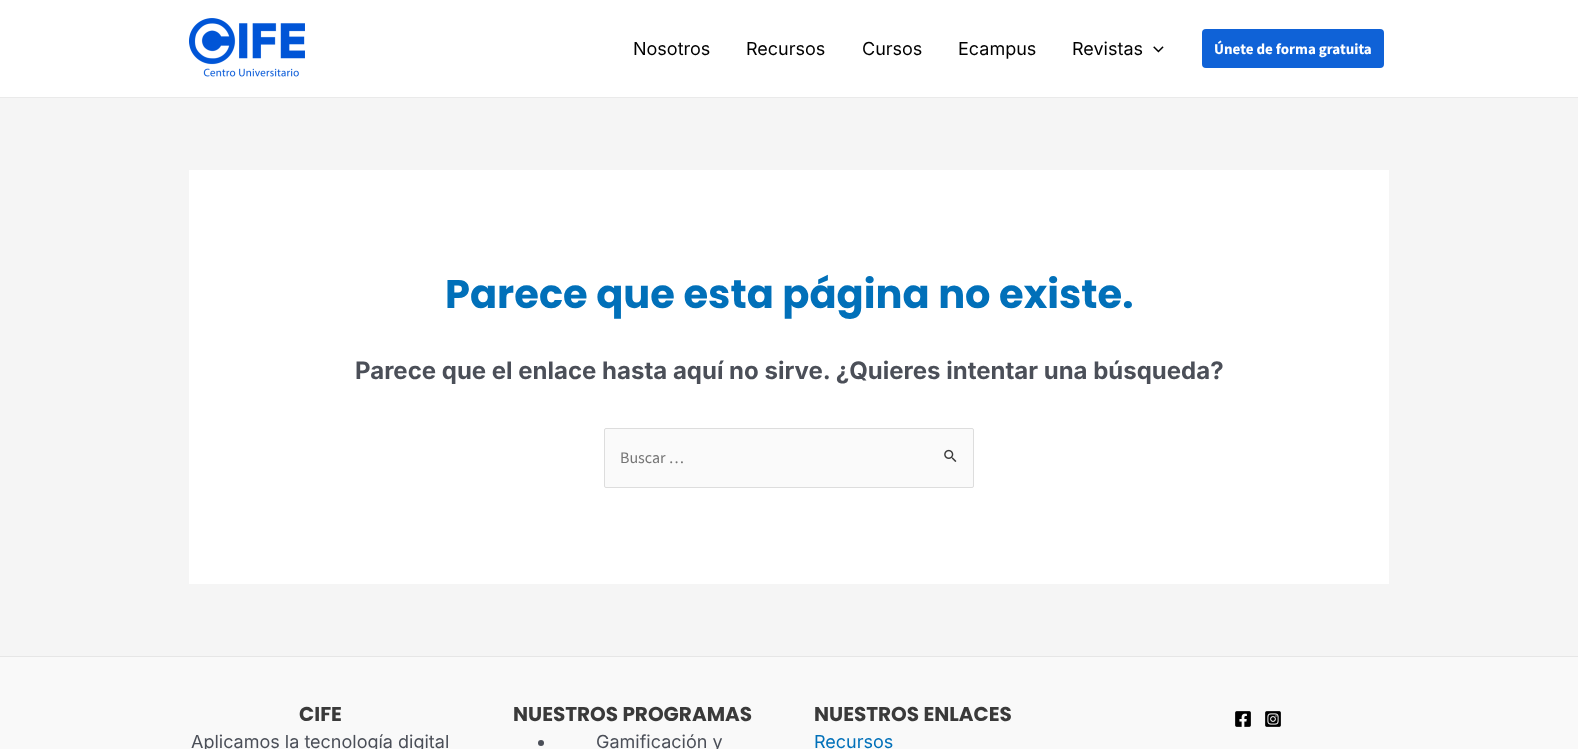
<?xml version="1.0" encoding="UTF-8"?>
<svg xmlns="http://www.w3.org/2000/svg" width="1578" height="749">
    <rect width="100%" height="100%" fill="#F5F5F5"/>
    <rect x="0" y="0" width="1578" height="97" fill="#FFFFFF"/>
    <rect x="0" y="97" width="1578" height="1" fill="#EAEAEA"/>
    <image x="189" y="18" width="116" height="59" href="img_01.png"/>
    <text x="633" y="55" font-family="Inter" font-size="18" fill="#000000">Nosotros</text>
    <text x="746" y="55" font-family="Inter" font-size="18" fill="#000000">Recursos</text>
    <text x="862" y="55" font-family="Inter" font-size="18" fill="#000000">Cursos</text>
    <text x="958" y="55" font-family="Inter" font-size="18" fill="#000000">Ecampus</text>
    <text x="1072" y="55" font-family="Inter" font-size="18" fill="#000000">Revistas</text>
    <image x="1153" y="46" width="11" height="7" href="img_02.png"/>
    <rect x="1202" y="29" width="182" height="39" rx="4" fill="#0F62D7"/>
    <text x="1214" y="54" font-family="Source Sans Pro" font-size="15" font-weight="700" fill="#FFFFFF">Únete de forma gratuita</text>
    <rect x="189" y="170" width="1200" height="414" fill="#FFFFFF"/>
    <text x="445" y="308" font-family="Poppins" font-size="40" font-weight="700" fill="#0170B9">Parece que esta página no existe.</text>
    <text x="355" y="379" font-family="Inter" font-size="24" font-weight="700" fill="#4B4F58">Parece que el enlace hasta aquí no sirve. ¿Quieres intentar una búsqueda?</text>
    <rect x="604.5" y="428.5" width="369" height="59" rx="1.5" fill="#FAFAFA" stroke="#DDDDDD"/>
    <text x="620" y="463" font-family="Source Sans Pro" font-size="16" fill="#757575">Buscar …</text>
    <image x="944" y="449" width="13" height="13" href="img_03.png"/>
    <rect x="0" y="657" width="1578" height="92" fill="#F9F9F9"/>
    <rect x="0" y="656" width="1578" height="1" fill="#E6E6E6"/>
    <text x="299" y="721" font-family="Poppins" font-size="20" font-weight="700" fill="#3A3A3A">CIFE</text>
    <text x="191" y="748" font-family="Inter" font-size="18" fill="#4B4F58">Aplicamos la tecnología digital</text>
    <text x="513" y="721" font-family="Poppins" font-size="20" font-weight="700" fill="#3A3A3A">NUESTROS PROGRAMAS</text>
    <circle cx="541" cy="743" r="3" fill="#4B4F58"/>
    <text x="596" y="748" font-family="Inter" font-size="18" fill="#4B4F58">Gamificación y</text>
    <text x="814" y="721" font-family="Poppins" font-size="20" font-weight="700" fill="#3A3A3A">NUESTROS ENLACES</text>
    <text x="814" y="748" font-family="Inter" font-size="18" fill="#0170B9">Recursos</text>
    <image x="1235" y="711" width="16" height="16" href="img_04.png"/>
    <image x="1265" y="711" width="16" height="16" href="img_05.png"/>
</svg>
